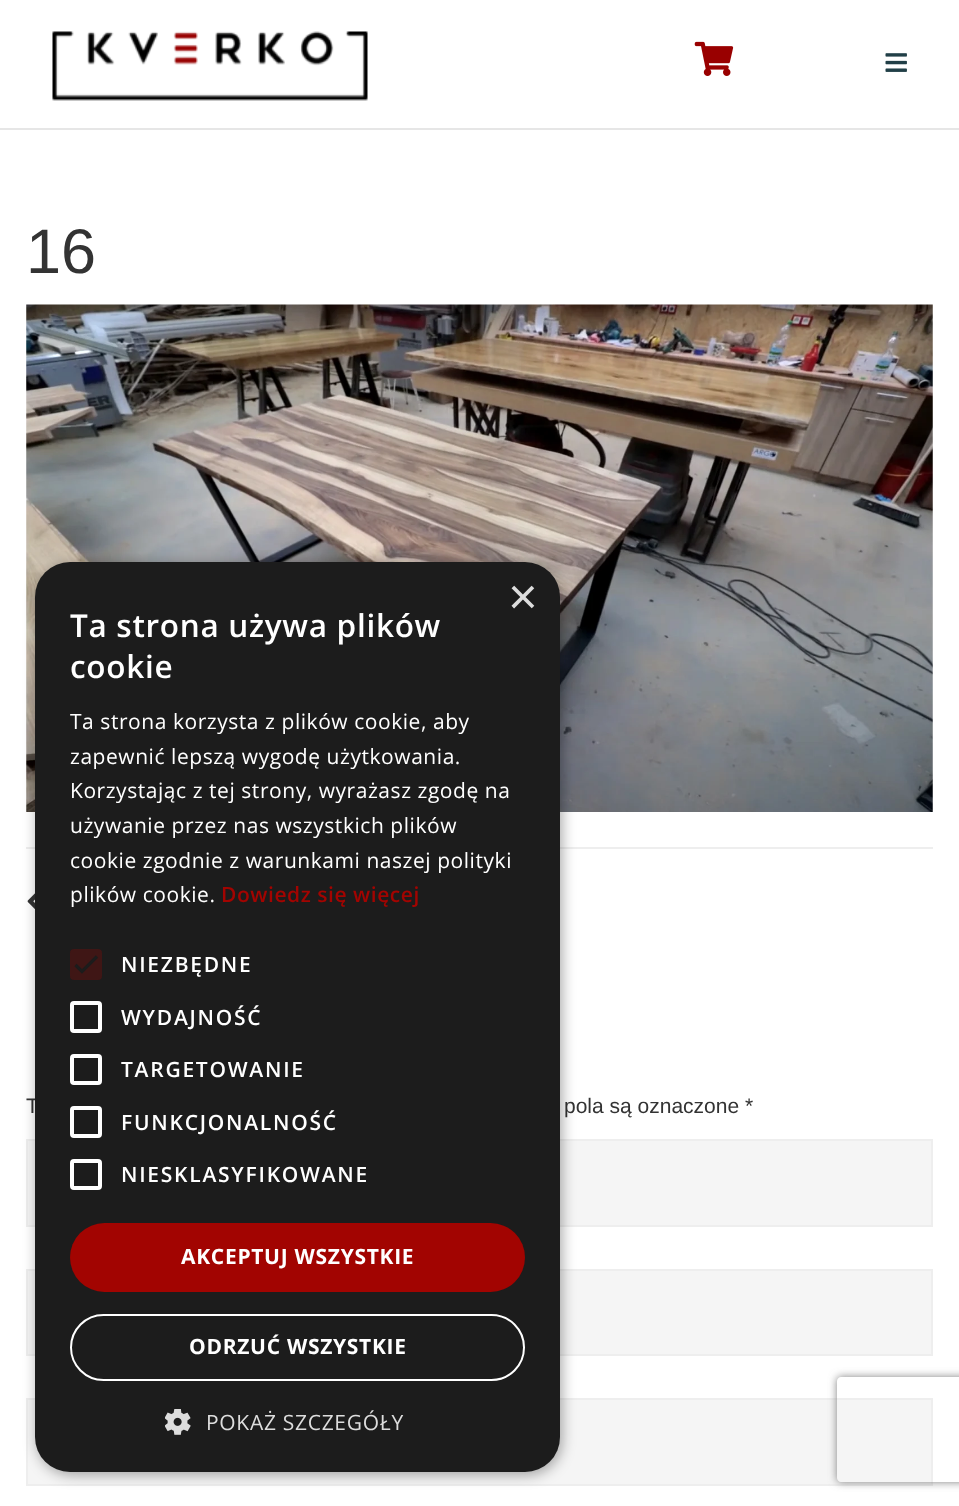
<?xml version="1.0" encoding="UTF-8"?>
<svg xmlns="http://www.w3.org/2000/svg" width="959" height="1506">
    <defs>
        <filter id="blur1" x="-50%" y="-200%" width="200%" height="500%"><feGaussianBlur stdDeviation="7"/></filter>
        <clipPath id="clip1"><path d="M 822 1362 H 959 V 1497 H 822 Z M 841 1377 H 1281 C 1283 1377 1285 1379 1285 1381 V 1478 C 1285 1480 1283 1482 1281 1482 H 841 C 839 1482 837 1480 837 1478 V 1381 C 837 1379 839 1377 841 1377 Z" clip-rule="evenodd"/></clipPath>
        <filter id="blur2" x="-50%" y="-200%" width="200%" height="500%"><feGaussianBlur stdDeviation="4.5"/></filter>
    </defs>
    <rect width="100%" height="100%" fill="#FFFFFF"/>
    <rect x="0" y="128" width="959" height="2" fill="#E6E6E6"/>
    <image x="52" y="31" width="316" height="70" href="img_01.png"/>
    <image x="694" y="41" width="40" height="35" href="img_02.png"/>
    <image x="885" y="53" width="22" height="19" href="img_03.png"/>
    <text x="26" y="273" font-family="Liberation Sans" font-size="63" fill="#333333">16</text>
    <image x="26" y="304" width="907" height="508" href="img_04.png"/>
    <rect x="26" y="847" width="907" height="2" fill="#EEEEEE"/>
    <image x="27" y="893" width="8" height="16" href="img_05.png"/>
    <text x="26" y="1113" font-family="Liberation Sans" font-size="21" fill="#333333">T</text>
    <text x="564" y="1113" font-family="Liberation Sans" font-size="21" fill="#333333">pola są oznaczone *</text>
    <rect x="27" y="1140" width="905" height="86" fill="#F5F5F5" stroke="#EEEEEE" stroke-width="2"/>
    <rect x="27" y="1270" width="905" height="85" fill="#F5F5F5" stroke="#EEEEEE" stroke-width="2"/>
    <rect x="27" y="1399" width="905" height="86" fill="#F5F5F5" stroke="#EEEEEE" stroke-width="2"/>
    <rect x="37" y="565" width="525" height="910" rx="35" fill="#000000" fill-opacity="0.35" filter="url(#blur1)"/>
    <rect x="35" y="562" width="525" height="910" rx="35" fill="#1C1C1C"/>
    <text x="508" y="614" font-family="Liberation Sans" font-size="51" fill="#DDDDDD">×</text>
    <text font-family="Open Sans" font-size="31.5" font-weight="600" letter-spacing="0.7" fill="#FFFFFF">
        <tspan x="70" y="637">Ta strona używa plików</tspan>
        <tspan x="70" y="678">cookie</tspan>
    </text>
    <text font-family="Open Sans" font-size="21" letter-spacing="0.55" fill="#FFFFFF">
        <tspan x="70" y="729">Ta strona korzysta z plików cookie, aby</tspan>
        <tspan x="70" y="764">zapewnić lepszą wygodę użytkowania.</tspan>
        <tspan x="70" y="798">Korzystając z tej strony, wyrażasz zgodę na</tspan>
        <tspan x="70" y="833">używanie przez nas wszystkich plików</tspan>
        <tspan x="70" y="868">cookie zgodnie z warunkami naszej polityki</tspan>
        <tspan x="70" y="902">plików cookie.</tspan>
    </text>
    <text x="221" y="902" font-family="Open Sans" font-size="21" font-weight="600" letter-spacing="0.55" fill="#A20401">Dowiedz się więcej</text>
    <rect x="70" y="949" width="32" height="31" rx="4" fill="#3F1615"/>
    <path d="M 75.5 965 L 82 971.5 L 97 956.5" fill="none" stroke="#1C1C1C" stroke-width="3.2"/>
    <text x="121" y="972" font-family="Open Sans" font-size="21" font-weight="600" letter-spacing="1.75" fill="#FFFFFF">NIEZBĘDNE</text>
    <rect x="72" y="1003" width="28" height="28" rx="2" fill="none" stroke="#FFFFFF" stroke-width="4"/>
    <text x="121" y="1025" font-family="Open Sans" font-size="21" font-weight="600" letter-spacing="1.75" fill="#FFFFFF">WYDAJNOŚĆ</text>
    <rect x="72" y="1056" width="28" height="27" rx="2" fill="none" stroke="#FFFFFF" stroke-width="4"/>
    <text x="121" y="1077" font-family="Open Sans" font-size="21" font-weight="600" letter-spacing="1.75" fill="#FFFFFF">TARGETOWANIE</text>
    <rect x="72" y="1108" width="28" height="28" rx="2" fill="none" stroke="#FFFFFF" stroke-width="4"/>
    <text x="121" y="1130" font-family="Open Sans" font-size="21" font-weight="600" letter-spacing="1.75" fill="#FFFFFF">FUNKCJONALNOŚĆ</text>
    <rect x="72" y="1161" width="28" height="27" rx="2" fill="none" stroke="#FFFFFF" stroke-width="4"/>
    <text x="121" y="1182" font-family="Open Sans" font-size="21" font-weight="600" letter-spacing="1.75" fill="#FFFFFF">NIESKLASYFIKOWANE</text>
    <rect x="70" y="1223" width="455" height="69" rx="34.5" fill="#A20401"/>
    <text x="181" y="1264" font-family="Open Sans" font-size="21" font-weight="700" letter-spacing="0.7" fill="#FFFFFF">AKCEPTUJ WSZYSTKIE</text>
    <rect x="71" y="1315" width="453" height="65" rx="32.5" fill="none" stroke="#FFFFFF" stroke-width="2"/>
    <text x="189" y="1354" font-family="Open Sans" font-size="21" font-weight="700" letter-spacing="0.7" fill="#FFFFFF">ODRZUĆ WSZYSTKIE</text>
    <image x="165" y="1409" width="26" height="26" href="img_06.png"/>
    <text x="206" y="1430" font-family="Open Sans" font-size="21" letter-spacing="0.7" fill="#DDDDDD">POKAŻ SZCZEGÓŁY</text>
    <g clip-path="url(#clip1)">
        <rect x="837" y="1377" width="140" height="105" rx="4" fill="#808080" filter="url(#blur2)"/>
    </g>
</svg>
